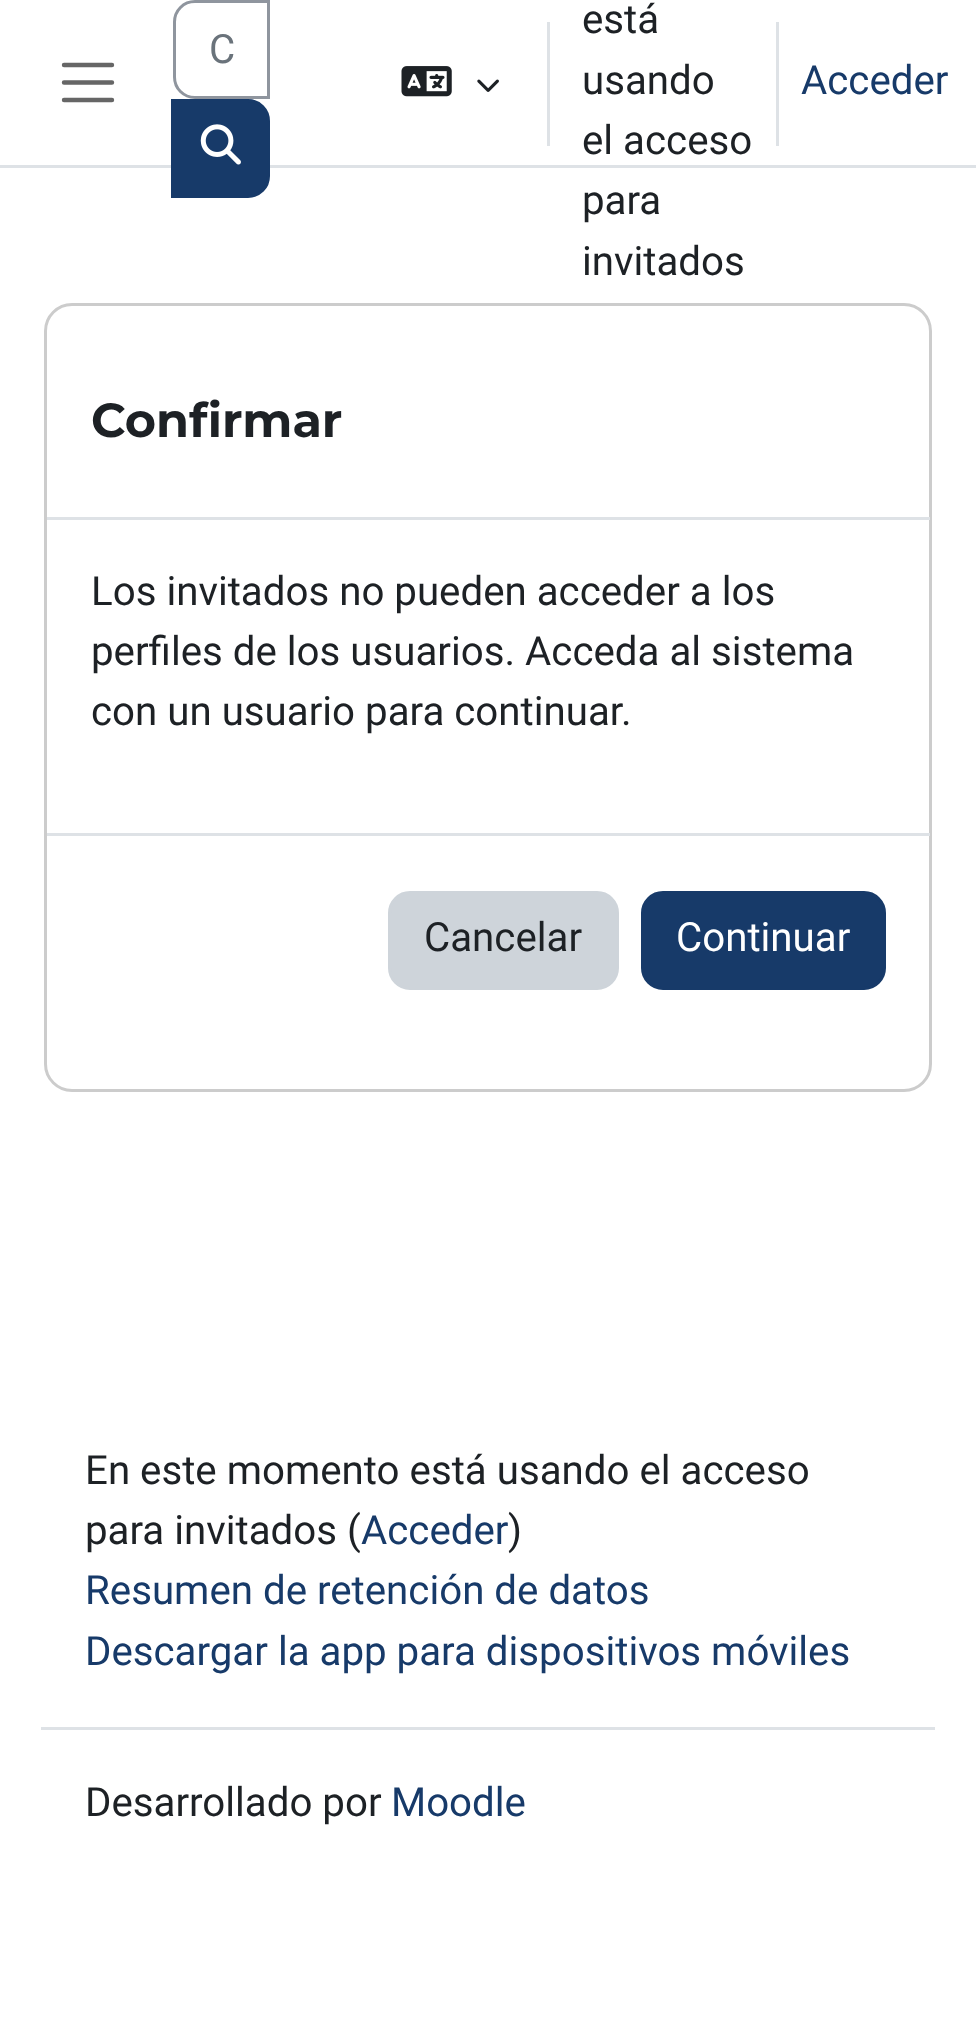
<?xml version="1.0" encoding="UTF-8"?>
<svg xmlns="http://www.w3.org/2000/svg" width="976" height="2043">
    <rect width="100%" height="100%" fill="#FFFFFF"/>
    <rect x="0" y="165" width="976" height="3" fill="#DEE2E6"/>
    <path d="M 64 65 H 112 M 64 82.5 H 112 M 64 100 H 112" fill="none" stroke="#666666" stroke-width="4.4" stroke-linecap="round"/>
    <path d="M 195 1.5 H 268.5 V 97.5 H 195 C 183.5 97.5 174.5 88.5 174.5 77 V 22 C 174.5 10.5 183.5 1.5 195 1.5 Z" fill="none" stroke="#8F959E" stroke-width="3"/>
    <text x="209" y="63" font-family="Roboto" font-size="40.25" fill="#6A737B">C</text>
    <path d="M 172.5 100.5 H 248 C 259.5 100.5 268.5 109.5 268.5 121 V 176 C 268.5 187.5 259.5 196.5 248 196.5 H 172.5 Z" fill="#173A69" stroke="#173A69" stroke-width="3"/>
    <image x="200" y="124" width="41" height="41" href="img_01.png"/>
    <rect x="547" y="22" width="3" height="124" fill="#DEE2E6"/>
    <text font-family="Roboto" font-size="40.25" fill="#1D2125">
        <tspan x="582" y="33">está</tspan>
        <tspan x="582" y="94">usando</tspan>
    </text>
    <rect x="776" y="22" width="3" height="124" fill="#DEE2E6"/>
    <text x="801" y="94" font-family="Roboto" font-size="40.25" fill="#173A69">Acceder</text>
    <text font-family="Roboto" font-size="40.25" fill="#1D2125">
        <tspan x="582" y="154">el acceso</tspan>
        <tspan x="582" y="214">para</tspan>
        <tspan x="582" y="275">invitados</tspan>
    </text>
    <image x="401" y="66" width="51" height="31" href="img_02.png"/>
    <image x="477" y="79" width="22" height="13" href="img_03.png"/>
    <rect x="45.5" y="304.5" width="885" height="786" rx="26.5" fill="none" stroke="#CCCCCC" stroke-width="3"/>
    <rect x="47" y="517" width="883" height="3" fill="#DEE2E6"/>
    <text x="91" y="437" font-family="Montserrat" font-size="47.75" font-weight="700" fill="#1D2125">Confirmar</text>
    <text font-family="Roboto" font-size="40.25" fill="#1D2125">
        <tspan x="91" y="605">Los invitados no pueden acceder a los</tspan>
        <tspan x="91" y="665">perfiles de los usuarios. Acceda al sistema</tspan>
        <tspan x="91" y="725">con un usuario para continuar.</tspan>
    </text>
    <rect x="47" y="833" width="883" height="3" fill="#DEE2E6"/>
    <rect x="389.5" y="892.5" width="228" height="96" rx="20.5" fill="#CED4DA" stroke="#CED4DA" stroke-width="3"/>
    <text x="424" y="951" font-family="Roboto" font-size="40.25" fill="#1D2125">Cancelar</text>
    <rect x="642.5" y="892.5" width="242" height="96" rx="20.5" fill="#173A69" stroke="#173A69" stroke-width="3"/>
    <text x="676" y="951" font-family="Roboto" font-size="40.25" fill="#FFFFFF">Continuar</text>
    <rect x="41" y="1727" width="894" height="3" fill="#DEE2E6"/>
    <text font-family="Roboto" font-size="40.25" fill="#1D2125">
        <tspan x="85" y="1484">En este momento está usando el acceso</tspan>
        <tspan x="85" y="1544">para invitados (</tspan>
    </text>
    <text x="361" y="1544" font-family="Roboto" font-size="40.25" fill="#173A69">Acceder</text>
    <text x="508" y="1544" font-family="Roboto" font-size="40.25" fill="#1D2125">)</text>
    <text font-family="Roboto" font-size="40.25" fill="#173A69">
        <tspan x="85" y="1604">Resumen de retención de datos</tspan>
        <tspan x="85" y="1665">Descargar la app para dispositivos móviles</tspan>
    </text>
    <text x="85" y="1816" font-family="Roboto" font-size="40.25" fill="#1D2125">Desarrollado por</text>
    <text x="391" y="1816" font-family="Roboto" font-size="40.25" fill="#173A69">Moodle</text>
</svg>
